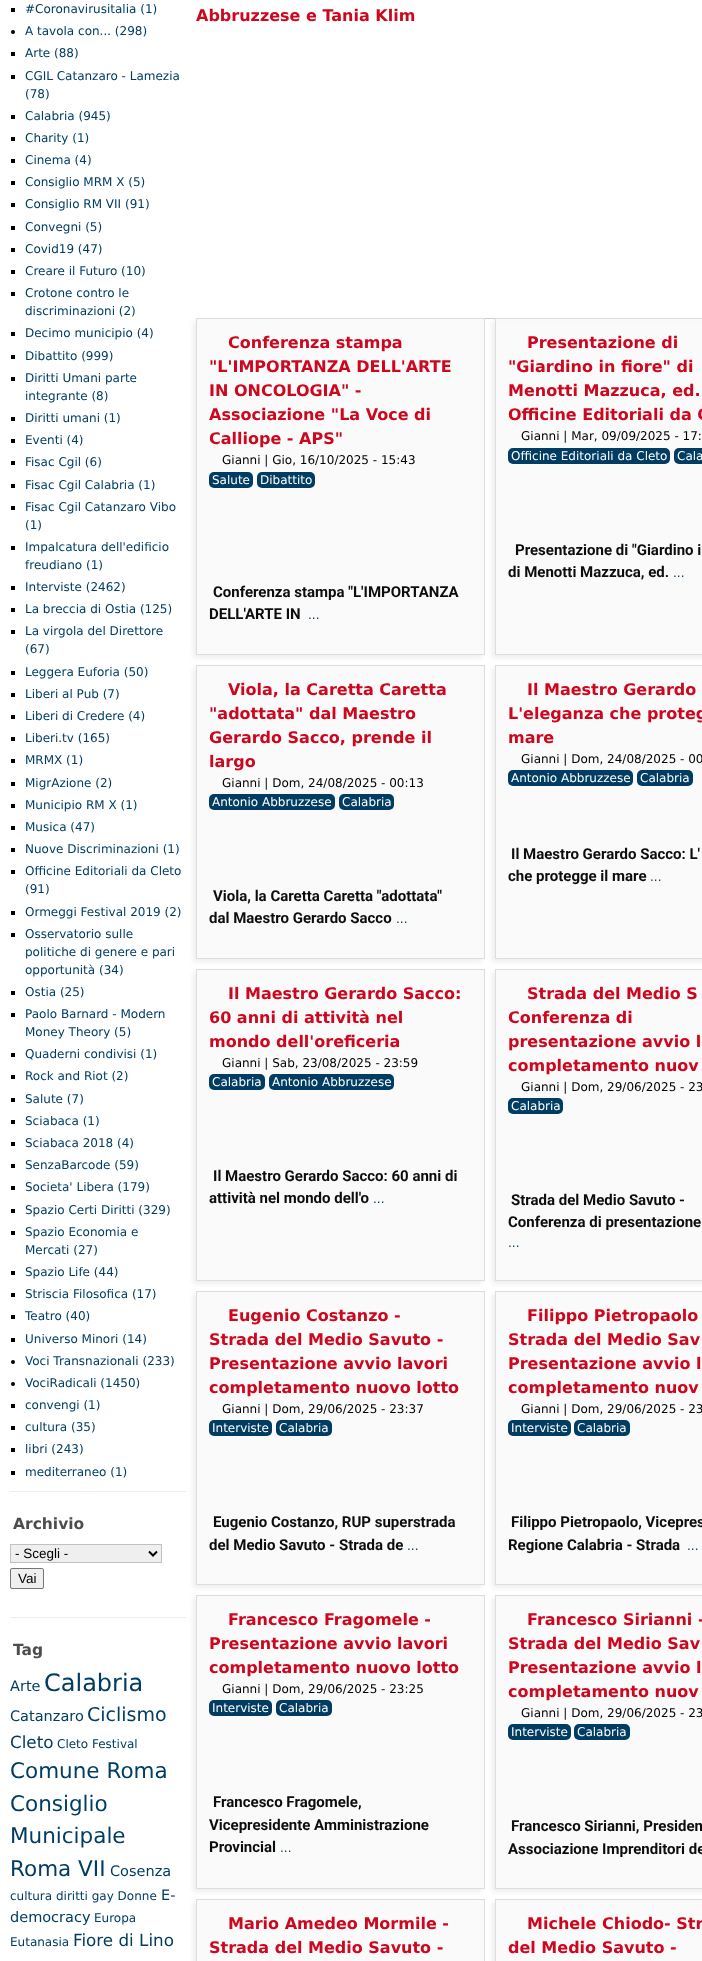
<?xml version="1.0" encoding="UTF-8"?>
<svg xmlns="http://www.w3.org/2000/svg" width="702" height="1961">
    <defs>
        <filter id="blur1" x="-50%" y="-200%" width="200%" height="500%"><feGaussianBlur stdDeviation="2.5"/></filter>
    </defs>
    <rect width="100%" height="100%" fill="#FFFFFF"/>
    <rect x="193" y="1294" width="289" height="294" fill="#EEEEEE" filter="url(#blur1)"/>
    <rect x="10" y="1491" width="176" height="1" fill="#EEEEEE"/>
    <rect x="11" y="8" width="4" height="4" fill="#000000"/>
    <text x="25" y="13" font-family="DejaVu Sans" font-size="12" fill="#013D63">#Coronavirusitalia (1)</text>
    <circle cx="13" cy="32" r="2" fill="#000000"/>
    <text x="25" y="35" font-family="DejaVu Sans" font-size="12" fill="#013D63">A tavola con... (298)</text>
    <rect x="11" y="52" width="4" height="4" fill="#000000"/>
    <text x="25" y="57" font-family="DejaVu Sans" font-size="12" fill="#013D63">Arte (88)</text>
    <rect x="11" y="75" width="4" height="4" fill="#000000"/>
    <text font-family="DejaVu Sans" font-size="12" fill="#013D63">
        <tspan x="25" y="80">CGIL Catanzaro - Lamezia</tspan>
        <tspan x="25" y="98">(78)</tspan>
    </text>
    <rect x="11" y="115" width="4" height="4" fill="#000000"/>
    <text x="25" y="120" font-family="DejaVu Sans" font-size="12" fill="#013D63">Calabria (945)</text>
    <rect x="11" y="137" width="4" height="4" fill="#000000"/>
    <text x="25" y="142" font-family="DejaVu Sans" font-size="12" fill="#013D63">Charity (1)</text>
    <rect x="11" y="159" width="4" height="4" fill="#000000"/>
    <text x="25" y="164" font-family="DejaVu Sans" font-size="12" fill="#013D63">Cinema (4)</text>
    <rect x="11" y="181" width="4" height="4" fill="#000000"/>
    <text x="25" y="186" font-family="DejaVu Sans" font-size="12" fill="#013D63">Consiglio MRM X (5)</text>
    <rect x="11" y="203" width="4" height="4" fill="#000000"/>
    <text x="25" y="208" font-family="DejaVu Sans" font-size="12" fill="#013D63">Consiglio RM VII (91)</text>
    <rect x="11" y="226" width="4" height="4" fill="#000000"/>
    <text x="25" y="231" font-family="DejaVu Sans" font-size="12" fill="#013D63">Convegni (5)</text>
    <rect x="11" y="248" width="4" height="4" fill="#000000"/>
    <text x="25" y="253" font-family="DejaVu Sans" font-size="12" fill="#013D63">Covid19 (47)</text>
    <rect x="11" y="270" width="4" height="4" fill="#000000"/>
    <text x="25" y="275" font-family="DejaVu Sans" font-size="12" fill="#013D63">Creare il Futuro (10)</text>
    <rect x="11" y="292" width="4" height="4" fill="#000000"/>
    <text font-family="DejaVu Sans" font-size="12" fill="#013D63">
        <tspan x="25" y="297">Crotone contro le</tspan>
        <tspan x="25" y="315">discriminazioni (2)</tspan>
    </text>
    <rect x="11" y="332" width="4" height="4" fill="#000000"/>
    <text x="25" y="337" font-family="DejaVu Sans" font-size="12" fill="#013D63">Decimo municipio (4)</text>
    <rect x="11" y="355" width="4" height="4" fill="#000000"/>
    <text x="25" y="360" font-family="DejaVu Sans" font-size="12" fill="#013D63">Dibattito (999)</text>
    <rect x="11" y="377" width="4" height="4" fill="#000000"/>
    <text font-family="DejaVu Sans" font-size="12" fill="#013D63">
        <tspan x="25" y="382">Diritti Umani parte</tspan>
        <tspan x="25" y="400">integrante (8)</tspan>
    </text>
    <rect x="11" y="417" width="4" height="4" fill="#000000"/>
    <text x="25" y="422" font-family="DejaVu Sans" font-size="12" fill="#013D63">Diritti umani (1)</text>
    <rect x="11" y="439" width="4" height="4" fill="#000000"/>
    <text x="25" y="444" font-family="DejaVu Sans" font-size="12" fill="#013D63">Eventi (4)</text>
    <rect x="11" y="461" width="4" height="4" fill="#000000"/>
    <text x="25" y="466" font-family="DejaVu Sans" font-size="12" fill="#013D63">Fisac Cgil (6)</text>
    <rect x="11" y="484" width="4" height="4" fill="#000000"/>
    <text x="25" y="489" font-family="DejaVu Sans" font-size="12" fill="#013D63">Fisac Cgil Calabria (1)</text>
    <rect x="11" y="506" width="4" height="4" fill="#000000"/>
    <text font-family="DejaVu Sans" font-size="12" fill="#013D63">
        <tspan x="25" y="511">Fisac Cgil Catanzaro Vibo</tspan>
        <tspan x="25" y="529">(1)</tspan>
    </text>
    <rect x="11" y="546" width="4" height="4" fill="#000000"/>
    <text font-family="DejaVu Sans" font-size="12" fill="#013D63">
        <tspan x="25" y="551">Impalcatura dell'edificio</tspan>
        <tspan x="25" y="569">freudiano (1)</tspan>
    </text>
    <rect x="11" y="586" width="4" height="4" fill="#000000"/>
    <text x="25" y="591" font-family="DejaVu Sans" font-size="12" fill="#013D63">Interviste (2462)</text>
    <rect x="11" y="608" width="4" height="4" fill="#000000"/>
    <text x="25" y="613" font-family="DejaVu Sans" font-size="12" fill="#013D63">La breccia di Ostia (125)</text>
    <rect x="11" y="630" width="4" height="4" fill="#000000"/>
    <text font-family="DejaVu Sans" font-size="12" fill="#013D63">
        <tspan x="25" y="635">La virgola del Direttore</tspan>
        <tspan x="25" y="653">(67)</tspan>
    </text>
    <rect x="11" y="671" width="4" height="4" fill="#000000"/>
    <text x="25" y="676" font-family="DejaVu Sans" font-size="12" fill="#013D63">Leggera Euforia (50)</text>
    <rect x="11" y="693" width="4" height="4" fill="#000000"/>
    <text x="25" y="698" font-family="DejaVu Sans" font-size="12" fill="#013D63">Liberi al Pub (7)</text>
    <rect x="11" y="715" width="4" height="4" fill="#000000"/>
    <text x="25" y="720" font-family="DejaVu Sans" font-size="12" fill="#013D63">Liberi di Credere (4)</text>
    <rect x="11" y="737" width="4" height="4" fill="#000000"/>
    <text x="25" y="742" font-family="DejaVu Sans" font-size="12" fill="#013D63">Liberi.tv (165)</text>
    <rect x="11" y="759" width="4" height="4" fill="#000000"/>
    <text x="25" y="764" font-family="DejaVu Sans" font-size="12" fill="#013D63">MRMX (1)</text>
    <rect x="11" y="782" width="4" height="4" fill="#000000"/>
    <text x="25" y="787" font-family="DejaVu Sans" font-size="12" fill="#013D63">MigrAzione (2)</text>
    <rect x="11" y="804" width="4" height="4" fill="#000000"/>
    <text x="25" y="809" font-family="DejaVu Sans" font-size="12" fill="#013D63">Municipio RM X (1)</text>
    <rect x="11" y="826" width="4" height="4" fill="#000000"/>
    <text x="25" y="831" font-family="DejaVu Sans" font-size="12" fill="#013D63">Musica (47)</text>
    <rect x="11" y="848" width="4" height="4" fill="#000000"/>
    <text x="25" y="853" font-family="DejaVu Sans" font-size="12" fill="#013D63">Nuove Discriminazioni (1)</text>
    <rect x="11" y="870" width="4" height="4" fill="#000000"/>
    <text font-family="DejaVu Sans" font-size="12" fill="#013D63">
        <tspan x="25" y="875">Officine Editoriali da Cleto</tspan>
        <tspan x="25" y="893">(91)</tspan>
    </text>
    <rect x="11" y="911" width="4" height="4" fill="#000000"/>
    <text x="25" y="916" font-family="DejaVu Sans" font-size="12" fill="#013D63">Ormeggi Festival 2019 (2)</text>
    <rect x="11" y="933" width="4" height="4" fill="#000000"/>
    <text font-family="DejaVu Sans" font-size="12" fill="#013D63">
        <tspan x="25" y="938">Osservatorio sulle</tspan>
        <tspan x="25" y="956">politiche di genere e pari</tspan>
        <tspan x="25" y="974">opportunità (34)</tspan>
    </text>
    <rect x="11" y="991" width="4" height="4" fill="#000000"/>
    <text x="25" y="996" font-family="DejaVu Sans" font-size="12" fill="#013D63">Ostia (25)</text>
    <rect x="11" y="1013" width="4" height="4" fill="#000000"/>
    <text font-family="DejaVu Sans" font-size="12" fill="#013D63">
        <tspan x="25" y="1018">Paolo Barnard - Modern</tspan>
        <tspan x="25" y="1036">Money Theory (5)</tspan>
    </text>
    <rect x="11" y="1053" width="4" height="4" fill="#000000"/>
    <text x="25" y="1058" font-family="DejaVu Sans" font-size="12" fill="#013D63">Quaderni condivisi (1)</text>
    <rect x="11" y="1075" width="4" height="4" fill="#000000"/>
    <text x="25" y="1080" font-family="DejaVu Sans" font-size="12" fill="#013D63">Rock and Riot (2)</text>
    <rect x="11" y="1098" width="4" height="4" fill="#000000"/>
    <text x="25" y="1103" font-family="DejaVu Sans" font-size="12" fill="#013D63">Salute (7)</text>
    <rect x="11" y="1120" width="4" height="4" fill="#000000"/>
    <text x="25" y="1125" font-family="DejaVu Sans" font-size="12" fill="#013D63">Sciabaca (1)</text>
    <rect x="11" y="1142" width="4" height="4" fill="#000000"/>
    <text x="25" y="1147" font-family="DejaVu Sans" font-size="12" fill="#013D63">Sciabaca 2018 (4)</text>
    <rect x="11" y="1164" width="4" height="4" fill="#000000"/>
    <text x="25" y="1169" font-family="DejaVu Sans" font-size="12" fill="#013D63">SenzaBarcode (59)</text>
    <rect x="11" y="1186" width="4" height="4" fill="#000000"/>
    <text x="25" y="1191" font-family="DejaVu Sans" font-size="12" fill="#013D63">Societa' Libera (179)</text>
    <rect x="11" y="1209" width="4" height="4" fill="#000000"/>
    <text x="25" y="1214" font-family="DejaVu Sans" font-size="12" fill="#013D63">Spazio Certi Diritti (329)</text>
    <rect x="11" y="1231" width="4" height="4" fill="#000000"/>
    <text font-family="DejaVu Sans" font-size="12" fill="#013D63">
        <tspan x="25" y="1236">Spazio Economia e</tspan>
        <tspan x="25" y="1254">Mercati (27)</tspan>
    </text>
    <rect x="11" y="1271" width="4" height="4" fill="#000000"/>
    <text x="25" y="1276" font-family="DejaVu Sans" font-size="12" fill="#013D63">Spazio Life (44)</text>
    <rect x="11" y="1293" width="4" height="4" fill="#000000"/>
    <text x="25" y="1298" font-family="DejaVu Sans" font-size="12" fill="#013D63">Striscia Filosofica (17)</text>
    <rect x="11" y="1315" width="4" height="4" fill="#000000"/>
    <text x="25" y="1320" font-family="DejaVu Sans" font-size="12" fill="#013D63">Teatro (40)</text>
    <rect x="11" y="1338" width="4" height="4" fill="#000000"/>
    <text x="25" y="1343" font-family="DejaVu Sans" font-size="12" fill="#013D63">Universo Minori (14)</text>
    <circle cx="13" cy="1362" r="2" fill="#000000"/>
    <text x="25" y="1365" font-family="DejaVu Sans" font-size="12" fill="#013D63">Voci Transnazionali (233)</text>
    <circle cx="13" cy="1384" r="2" fill="#000000"/>
    <text x="25" y="1387" font-family="DejaVu Sans" font-size="12" fill="#013D63">VociRadicali (1450)</text>
    <rect x="11" y="1404" width="4" height="4" fill="#000000"/>
    <text x="25" y="1409" font-family="DejaVu Sans" font-size="12" fill="#013D63">convengi (1)</text>
    <rect x="11" y="1426" width="4" height="4" fill="#000000"/>
    <text x="25" y="1431" font-family="DejaVu Sans" font-size="12" fill="#013D63">cultura (35)</text>
    <rect x="11" y="1448" width="4" height="4" fill="#000000"/>
    <text x="25" y="1453" font-family="DejaVu Sans" font-size="12" fill="#013D63">libri (243)</text>
    <rect x="11" y="1471" width="4" height="4" fill="#000000"/>
    <text x="25" y="1476" font-family="DejaVu Sans" font-size="12" fill="#013D63">mediterraneo (1)</text>
    <rect x="193" y="1598" width="289" height="294" fill="#EEEEEE" filter="url(#blur1)"/>
    <rect x="10" y="1617" width="176" height="1" fill="#EEEEEE"/>
    <text x="13" y="1529" font-family="DejaVu Sans" font-size="15.5" font-weight="700" fill="#4D4D4D">Archivio</text>
    <rect x="10.5" y="1544.5" width="151" height="18" fill="#EFEFEF" stroke="#C0C0C0"/>
    <path d="M 149 1551.5 L 153 1555.5 L 157 1551.5" fill="none" stroke="#000000" stroke-width="2"/>
    <text x="15" y="1558" font-family="Liberation Sans" font-size="13.5" fill="#000000">- Scegli -</text>
    <rect x="10.5" y="1568.5" width="33" height="20" rx="1.5" fill="#EFEFEF" stroke="#767676"/>
    <text x="18" y="1583" font-family="Liberation Sans" font-size="13.5" fill="#000000">Vai</text>
    <text x="13" y="1655" font-family="DejaVu Sans" font-size="15.5" font-weight="700" fill="#4D4D4D">Tag</text>
    <text x="10" y="1691" font-family="DejaVu Sans" font-size="14.5" fill="#013D63">Arte</text>
    <text x="44" y="1691" font-family="DejaVu Sans" font-size="24" fill="#013D63">Calabria</text>
    <text x="10" y="1721" font-family="DejaVu Sans" font-size="14.5" fill="#013D63">Catanzaro</text>
    <text x="87" y="1721" font-family="DejaVu Sans" font-size="19" fill="#013D63">Ciclismo</text>
    <text x="10" y="1748" font-family="DejaVu Sans" font-size="16.75" fill="#013D63">Cleto</text>
    <text x="57" y="1748" font-family="DejaVu Sans" font-size="12" fill="#013D63">Cleto Festival</text>
    <text font-family="DejaVu Sans" font-size="21.5" fill="#013D63">
        <tspan x="10" y="1778">Comune Roma</tspan>
        <tspan x="10" y="1811">Consiglio</tspan>
        <tspan x="10" y="1843">Municipale</tspan>
        <tspan x="10" y="1876">Roma VII</tspan>
    </text>
    <text x="110" y="1876" font-family="DejaVu Sans" font-size="14.5" fill="#013D63">Cosenza</text>
    <text x="10" y="1900" font-family="DejaVu Sans" font-size="12" fill="#013D63">cultura diritti gay Donne</text>
    <text x="161" y="1900" font-family="DejaVu Sans" font-size="14.5" fill="#013D63">E-</text>
    <text x="10" y="1922" font-family="DejaVu Sans" font-size="14.5" fill="#013D63">democracy</text>
    <text x="94" y="1922" font-family="DejaVu Sans" font-size="12" fill="#013D63">Europa</text>
    <text x="10" y="1946" font-family="DejaVu Sans" font-size="12" fill="#013D63">Eutanasia</text>
    <text x="73" y="1946" font-family="DejaVu Sans" font-size="16.75" fill="#013D63">Fiore di Lino</text>
    <text x="196" y="21" font-family="DejaVu Sans" font-size="16" font-weight="700" fill="#CC071E">Abbruzzese e Tania Klim</text>
    <rect x="485" y="318" width="10" height="1" fill="#CCCCCC"/>
    <rect x="193" y="321" width="289" height="337" fill="#EEEEEE" filter="url(#blur1)"/>
    <rect x="196.5" y="318.5" width="288" height="336" fill="#FAFAFA" stroke="#DDDDDD"/>
    <text x="228" y="348" font-family="DejaVu Sans" font-size="16" font-weight="700" fill="#CC071E">Conferenza stampa</text>
    <text font-family="DejaVu Sans" font-size="16" font-weight="700" fill="#CC071E">
        <tspan x="209" y="372">"L'IMPORTANZA DELL'ARTE</tspan>
        <tspan x="209" y="396">IN ONCOLOGIA" -</tspan>
        <tspan x="209" y="420">Associazione "La Voce di</tspan>
        <tspan x="209" y="444">Calliope - APS"</tspan>
    </text>
    <text x="222" y="464" font-family="DejaVu Sans" font-size="12" fill="#000000">Gianni | Gio, 16/10/2025 - 15:43</text>
    <rect x="209" y="472" width="44" height="16" rx="5" fill="#013D63"/>
    <text x="212" y="484" font-family="DejaVu Sans" font-size="12" fill="#FFFFFF">Salute</text>
    <rect x="257" y="472" width="58" height="16" rx="5" fill="#013D63"/>
    <text x="260" y="484" font-family="DejaVu Sans" font-size="12" fill="#FFFFFF">Dibattito</text>
    <text x="213" y="597" font-family="Roboto" font-size="15" font-weight="700" fill="#0D0D0D">Conferenza stampa "L'IMPORTANZA</text>
    <text x="209" y="619" font-family="Roboto" font-size="15" font-weight="700" fill="#0D0D0D">DELL'ARTE IN</text>
    <text x="308" y="619" font-family="DejaVu Sans" font-size="12" fill="#013D63">...</text>
    <rect x="492" y="321" width="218" height="337" fill="#EEEEEE" filter="url(#blur1)"/>
    <rect x="496" y="321" width="206" height="333" fill="#FAFAFA"/>
    <rect x="495.5" y="318.5" width="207" height="336" fill="none" stroke="#DDDDDD"/>
    <text x="527" y="348" font-family="DejaVu Sans" font-size="16" font-weight="700" fill="#CC071E">Presentazione di</text>
    <text font-family="DejaVu Sans" font-size="16" font-weight="700" fill="#CC071E">
        <tspan x="508" y="372">"Giardino in fiore" di</tspan>
        <tspan x="508" y="396">Menotti Mazzuca, ed.</tspan>
        <tspan x="508" y="420">Officine Editoriali da C</tspan>
    </text>
    <text x="521" y="440" font-family="DejaVu Sans" font-size="12" fill="#000000">Gianni | Mar, 09/09/2025 - 17:</text>
    <rect x="508" y="448" width="162" height="16" rx="5" fill="#013D63"/>
    <text x="511" y="460" font-family="DejaVu Sans" font-size="12" fill="#FFFFFF">Officine Editoriali da Cleto</text>
    <rect x="674" y="448" width="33" height="16" rx="5" fill="#013D63"/>
    <text x="677" y="460" font-family="DejaVu Sans" font-size="12" fill="#FFFFFF">Cala</text>
    <text x="515" y="555" font-family="Roboto" font-size="15" font-weight="700" fill="#0D0D0D">Presentazione di "Giardino i</text>
    <text x="508" y="577" font-family="Roboto" font-size="15" font-weight="700" fill="#0D0D0D">di Menotti Mazzuca, ed.</text>
    <text x="673" y="577" font-family="DejaVu Sans" font-size="12" fill="#013D63">...</text>
    <rect x="193" y="668" width="289" height="294" fill="#EEEEEE" filter="url(#blur1)"/>
    <rect x="196.5" y="665.5" width="288" height="293" fill="#FAFAFA" stroke="#DDDDDD"/>
    <text x="228" y="695" font-family="DejaVu Sans" font-size="16" font-weight="700" fill="#CC071E">Viola, la Caretta Caretta</text>
    <text font-family="DejaVu Sans" font-size="16" font-weight="700" fill="#CC071E">
        <tspan x="209" y="719">"adottata" dal Maestro</tspan>
        <tspan x="209" y="743">Gerardo Sacco, prende il</tspan>
        <tspan x="209" y="767">largo</tspan>
    </text>
    <text x="222" y="787" font-family="DejaVu Sans" font-size="12" fill="#000000">Gianni | Dom, 24/08/2025 - 00:13</text>
    <rect x="209" y="794" width="126" height="16" rx="5" fill="#013D63"/>
    <text x="212" y="806" font-family="DejaVu Sans" font-size="12" fill="#FFFFFF">Antonio Abbruzzese</text>
    <rect x="339" y="794" width="55" height="16" rx="5" fill="#013D63"/>
    <text x="342" y="806" font-family="DejaVu Sans" font-size="12" fill="#FFFFFF">Calabria</text>
    <text x="213" y="901" font-family="Roboto" font-size="15" font-weight="700" fill="#0D0D0D">Viola, la Caretta Caretta "adottata"</text>
    <text x="209" y="923" font-family="Roboto" font-size="15" font-weight="700" fill="#0D0D0D">dal Maestro Gerardo Sacco</text>
    <text x="396" y="923" font-family="DejaVu Sans" font-size="12" fill="#013D63">...</text>
    <rect x="492" y="668" width="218" height="294" fill="#EEEEEE" filter="url(#blur1)"/>
    <rect x="496" y="668" width="206" height="290" fill="#FAFAFA"/>
    <rect x="495.5" y="665.5" width="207" height="293" fill="none" stroke="#DDDDDD"/>
    <text x="527" y="695" font-family="DejaVu Sans" font-size="16" font-weight="700" fill="#CC071E">Il Maestro Gerardo</text>
    <text font-family="DejaVu Sans" font-size="16" font-weight="700" fill="#CC071E">
        <tspan x="508" y="719">L'eleganza che proteg</tspan>
        <tspan x="508" y="743">mare</tspan>
    </text>
    <text x="521" y="763" font-family="DejaVu Sans" font-size="12" fill="#000000">Gianni | Dom, 24/08/2025 - 00</text>
    <rect x="508" y="770" width="125" height="16" rx="5" fill="#013D63"/>
    <text x="511" y="782" font-family="DejaVu Sans" font-size="12" fill="#FFFFFF">Antonio Abbruzzese</text>
    <rect x="637" y="770" width="56" height="16" rx="5" fill="#013D63"/>
    <text x="640" y="782" font-family="DejaVu Sans" font-size="12" fill="#FFFFFF">Calabria</text>
    <text x="511" y="859" font-family="Roboto" font-size="15" font-weight="700" fill="#0D0D0D">Il Maestro Gerardo Sacco: L'</text>
    <text x="508" y="881" font-family="Roboto" font-size="15" font-weight="700" fill="#0D0D0D">che protegge il mare</text>
    <text x="650" y="881" font-family="DejaVu Sans" font-size="12" fill="#013D63">...</text>
    <rect x="193" y="972" width="289" height="312" fill="#EEEEEE" filter="url(#blur1)"/>
    <rect x="196.5" y="969.5" width="288" height="311" fill="#FAFAFA" stroke="#DDDDDD"/>
    <text x="228" y="999" font-family="DejaVu Sans" font-size="16" font-weight="700" fill="#CC071E">Il Maestro Gerardo Sacco:</text>
    <text font-family="DejaVu Sans" font-size="16" font-weight="700" fill="#CC071E">
        <tspan x="209" y="1023">60 anni di attività nel</tspan>
        <tspan x="209" y="1047">mondo dell'oreficeria</tspan>
    </text>
    <text x="222" y="1067" font-family="DejaVu Sans" font-size="12" fill="#000000">Gianni | Sab, 23/08/2025 - 23:59</text>
    <rect x="209" y="1074" width="56" height="16" rx="5" fill="#013D63"/>
    <text x="212" y="1086" font-family="DejaVu Sans" font-size="12" fill="#FFFFFF">Calabria</text>
    <rect x="269" y="1074" width="125" height="16" rx="5" fill="#013D63"/>
    <text x="272" y="1086" font-family="DejaVu Sans" font-size="12" fill="#FFFFFF">Antonio Abbruzzese</text>
    <text x="213" y="1181" font-family="Roboto" font-size="15" font-weight="700" fill="#0D0D0D">Il Maestro Gerardo Sacco: 60 anni di</text>
    <text x="209" y="1203" font-family="Roboto" font-size="15" font-weight="700" fill="#0D0D0D">attività nel mondo dell'o</text>
    <text x="373" y="1203" font-family="DejaVu Sans" font-size="12" fill="#013D63">...</text>
    <rect x="492" y="972" width="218" height="312" fill="#EEEEEE" filter="url(#blur1)"/>
    <rect x="496" y="972" width="206" height="308" fill="#FAFAFA"/>
    <rect x="495.5" y="969.5" width="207" height="311" fill="none" stroke="#DDDDDD"/>
    <text x="527" y="999" font-family="DejaVu Sans" font-size="16" font-weight="700" fill="#CC071E">Strada del Medio S</text>
    <text font-family="DejaVu Sans" font-size="16" font-weight="700" fill="#CC071E">
        <tspan x="508" y="1023">Conferenza di</tspan>
        <tspan x="508" y="1047">presentazione avvio l</tspan>
        <tspan x="508" y="1071">completamento nuov</tspan>
    </text>
    <text x="521" y="1091" font-family="DejaVu Sans" font-size="12" fill="#000000">Gianni | Dom, 29/06/2025 - 23</text>
    <rect x="508" y="1098" width="55" height="16" rx="5" fill="#013D63"/>
    <text x="511" y="1110" font-family="DejaVu Sans" font-size="12" fill="#FFFFFF">Calabria</text>
    <text x="511" y="1205" font-family="Roboto" font-size="15" font-weight="700" fill="#0D0D0D">Strada del Medio Savuto -</text>
    <text x="508" y="1227" font-family="Roboto" font-size="15" font-weight="700" fill="#0D0D0D">Conferenza di presentazione</text>
    <text x="508" y="1247" font-family="DejaVu Sans" font-size="12" fill="#013D63">...</text>
    <rect x="196.5" y="1291.5" width="288" height="293" fill="#FAFAFA" stroke="#DDDDDD"/>
    <text x="228" y="1321" font-family="DejaVu Sans" font-size="16" font-weight="700" fill="#CC071E">Eugenio Costanzo -</text>
    <text font-family="DejaVu Sans" font-size="16" font-weight="700" fill="#CC071E">
        <tspan x="209" y="1345">Strada del Medio Savuto -</tspan>
        <tspan x="209" y="1369">Presentazione avvio lavori</tspan>
        <tspan x="209" y="1393">completamento nuovo lotto</tspan>
    </text>
    <text x="222" y="1413" font-family="DejaVu Sans" font-size="12" fill="#000000">Gianni | Dom, 29/06/2025 - 23:37</text>
    <rect x="209" y="1420" width="63" height="16" rx="5" fill="#013D63"/>
    <text x="212" y="1432" font-family="DejaVu Sans" font-size="12" fill="#FFFFFF">Interviste</text>
    <rect x="276" y="1420" width="56" height="16" rx="5" fill="#013D63"/>
    <text x="279" y="1432" font-family="DejaVu Sans" font-size="12" fill="#FFFFFF">Calabria</text>
    <text x="213" y="1527" font-family="Roboto" font-size="15" font-weight="700" fill="#0D0D0D">Eugenio Costanzo, RUP superstrada</text>
    <text x="209" y="1550" font-family="Roboto" font-size="15" font-weight="700" fill="#0D0D0D">del Medio Savuto - Strada de</text>
    <text x="407" y="1550" font-family="DejaVu Sans" font-size="12" fill="#013D63">...</text>
    <rect x="492" y="1294" width="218" height="294" fill="#EEEEEE" filter="url(#blur1)"/>
    <rect x="496" y="1294" width="206" height="290" fill="#FAFAFA"/>
    <rect x="495.5" y="1291.5" width="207" height="293" fill="none" stroke="#DDDDDD"/>
    <text x="527" y="1321" font-family="DejaVu Sans" font-size="16" font-weight="700" fill="#CC071E">Filippo Pietropaolo</text>
    <text font-family="DejaVu Sans" font-size="16" font-weight="700" fill="#CC071E">
        <tspan x="508" y="1345">Strada del Medio Sav</tspan>
        <tspan x="508" y="1369">Presentazione avvio l</tspan>
        <tspan x="508" y="1393">completamento nuov</tspan>
    </text>
    <text x="521" y="1413" font-family="DejaVu Sans" font-size="12" fill="#000000">Gianni | Dom, 29/06/2025 - 23</text>
    <rect x="508" y="1420" width="63" height="16" rx="5" fill="#013D63"/>
    <text x="511" y="1432" font-family="DejaVu Sans" font-size="12" fill="#FFFFFF">Interviste</text>
    <rect x="574" y="1420" width="56" height="16" rx="5" fill="#013D63"/>
    <text x="577" y="1432" font-family="DejaVu Sans" font-size="12" fill="#FFFFFF">Calabria</text>
    <text x="511" y="1527" font-family="Roboto" font-size="15" font-weight="700" fill="#0D0D0D">Filippo Pietropaolo, Vicepres</text>
    <text x="508" y="1550" font-family="Roboto" font-size="15" font-weight="700" fill="#0D0D0D">Regione Calabria - Strada</text>
    <text x="687" y="1550" font-family="DejaVu Sans" font-size="12" fill="#013D63">...</text>
    <rect x="196.5" y="1595.5" width="288" height="293" fill="#FAFAFA" stroke="#DDDDDD"/>
    <text x="228" y="1625" font-family="DejaVu Sans" font-size="16" font-weight="700" fill="#CC071E">Francesco Fragomele -</text>
    <text font-family="DejaVu Sans" font-size="16" font-weight="700" fill="#CC071E">
        <tspan x="209" y="1649">Presentazione avvio lavori</tspan>
        <tspan x="209" y="1673">completamento nuovo lotto</tspan>
    </text>
    <text x="222" y="1693" font-family="DejaVu Sans" font-size="12" fill="#000000">Gianni | Dom, 29/06/2025 - 23:25</text>
    <rect x="209" y="1700" width="63" height="16" rx="5" fill="#013D63"/>
    <text x="212" y="1712" font-family="DejaVu Sans" font-size="12" fill="#FFFFFF">Interviste</text>
    <rect x="276" y="1700" width="56" height="16" rx="5" fill="#013D63"/>
    <text x="279" y="1712" font-family="DejaVu Sans" font-size="12" fill="#FFFFFF">Calabria</text>
    <text x="213" y="1807" font-family="Roboto" font-size="15" font-weight="700" fill="#0D0D0D">Francesco Fragomele,</text>
    <text font-family="Roboto" font-size="15" font-weight="700" fill="#0D0D0D">
        <tspan x="209" y="1830">Vicepresidente Amministrazione</tspan>
        <tspan x="209" y="1852">Provincial</tspan>
    </text>
    <text x="280" y="1852" font-family="DejaVu Sans" font-size="12" fill="#013D63">...</text>
    <rect x="492" y="1598" width="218" height="294" fill="#EEEEEE" filter="url(#blur1)"/>
    <rect x="496" y="1598" width="206" height="290" fill="#FAFAFA"/>
    <rect x="495.5" y="1595.5" width="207" height="293" fill="none" stroke="#DDDDDD"/>
    <text x="527" y="1625" font-family="DejaVu Sans" font-size="16" font-weight="700" fill="#CC071E">Francesco Sirianni -</text>
    <text font-family="DejaVu Sans" font-size="16" font-weight="700" fill="#CC071E">
        <tspan x="508" y="1649">Strada del Medio Sav</tspan>
        <tspan x="508" y="1673">Presentazione avvio l</tspan>
        <tspan x="508" y="1697">completamento nuov</tspan>
    </text>
    <text x="521" y="1717" font-family="DejaVu Sans" font-size="12" fill="#000000">Gianni | Dom, 29/06/2025 - 23</text>
    <rect x="508" y="1724" width="63" height="16" rx="5" fill="#013D63"/>
    <text x="511" y="1736" font-family="DejaVu Sans" font-size="12" fill="#FFFFFF">Interviste</text>
    <rect x="574" y="1724" width="56" height="16" rx="5" fill="#013D63"/>
    <text x="577" y="1736" font-family="DejaVu Sans" font-size="12" fill="#FFFFFF">Calabria</text>
    <text x="511" y="1831" font-family="Roboto" font-size="15" font-weight="700" fill="#0D0D0D">Francesco Sirianni, Presiden</text>
    <text x="508" y="1854" font-family="Roboto" font-size="15" font-weight="700" fill="#0D0D0D">Associazione Imprenditori de</text>
    <rect x="193" y="1902" width="289" height="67" fill="#EEEEEE" filter="url(#blur1)"/>
    <rect x="196.5" y="1899.5" width="288" height="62" fill="#FAFAFA" stroke="#DDDDDD"/>
    <text x="228" y="1929" font-family="DejaVu Sans" font-size="16" font-weight="700" fill="#CC071E">Mario Amedeo Mormile -</text>
    <text x="209" y="1953" font-family="DejaVu Sans" font-size="16" font-weight="700" fill="#CC071E">Strada del Medio Savuto -</text>
    <rect x="492" y="1902" width="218" height="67" fill="#EEEEEE" filter="url(#blur1)"/>
    <rect x="496" y="1902" width="206" height="59" fill="#FAFAFA"/>
    <rect x="495.5" y="1899.5" width="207" height="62" fill="none" stroke="#DDDDDD"/>
    <text x="527" y="1929" font-family="DejaVu Sans" font-size="16" font-weight="700" fill="#CC071E">Michele Chiodo- Str</text>
    <text x="508" y="1953" font-family="DejaVu Sans" font-size="16" font-weight="700" fill="#CC071E">del Medio Savuto -</text>
</svg>
